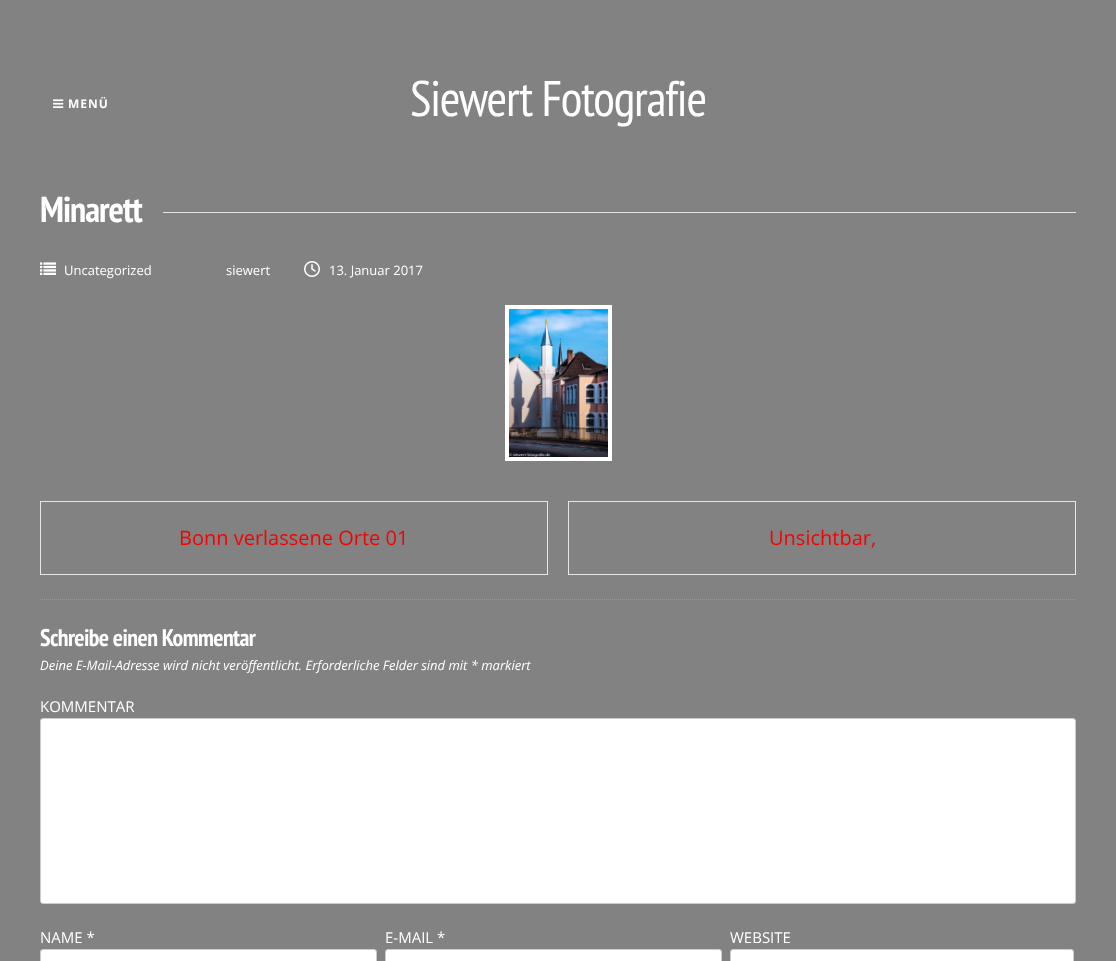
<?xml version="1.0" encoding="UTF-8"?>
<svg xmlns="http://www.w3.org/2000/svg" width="1116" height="961">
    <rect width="100%" height="100%" fill="#828282"/>
    <image x="53" y="99" width="11" height="9" href="img_01.png"/>
    <text x="68" y="108" font-family="Open Sans" font-size="12" font-weight="700" letter-spacing="1" fill="#FFFFFF">MENÜ</text>
    <text x="410" y="116" font-family="PT Sans Narrow" font-size="50" letter-spacing="-1.25" fill="#FFFFFF">Siewert Fotografie</text>
    <text x="40" y="222" font-family="PT Sans Narrow" font-size="36" font-weight="700" letter-spacing="-1" fill="#FFFFFF">Minarett</text>
    <rect x="163" y="212" width="913" height="1" fill="#E5E5E5"/>
    <image x="40" y="262" width="16" height="13" href="img_02.png"/>
    <text x="64" y="275" font-family="Open Sans" font-size="13" fill="#FFFFFF">Uncategorized</text>
    <text x="226" y="275" font-family="Open Sans" font-size="13" fill="#FFFFFF">siewert</text>
    <image x="304" y="261" width="16" height="16" href="img_03.png"/>
    <text x="329" y="275" font-family="Open Sans" font-size="13" fill="#FFFFFF">13. Januar 2017</text>
    <rect x="505" y="305" width="107" height="156" fill="#FFFFFF"/>
    <image x="509" y="309" width="99" height="148" href="img_04.png"/>
    <rect x="40.5" y="501.5" width="507" height="73" fill="none" stroke="#E6E7E8"/>
    <text x="179" y="545" font-family="Open Sans" font-size="20" fill="#F90000">Bonn verlassene Orte 01</text>
    <rect x="568.5" y="501.5" width="507" height="73" fill="none" stroke="#E6E7E8"/>
    <text x="769" y="545" font-family="Open Sans" font-size="20" fill="#F90000">Unsichtbar,</text>
    <path d="M 40 599.5 H 1076" fill="none" stroke="#999999" stroke-dasharray="1 1"/>
    <text x="40" y="646" font-family="PT Sans Narrow" font-size="24" font-weight="700" letter-spacing="-0.6" fill="#FFFFFF">Schreibe einen Kommentar</text>
    <text x="40" y="670" font-family="Open Sans" font-size="13" font-style="italic" fill="#FFFFFF">Deine E-Mail-Adresse wird nicht veröffentlicht. Erforderliche Felder sind mit * markiert</text>
    <text x="40" y="712" font-family="Open Sans" font-size="15" fill="#FFFFFF">KOMMENTAR</text>
    <rect x="40.5" y="718.5" width="1035" height="185" rx="2.5" fill="#FFFFFF" stroke="#CCCCCC"/>
    <text x="40" y="943" font-family="Open Sans" font-size="15" fill="#FFFFFF">NAME *</text>
    <rect x="40.5" y="949.5" width="336" height="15" rx="2.5" fill="#FFFFFF" stroke="#CCCCCC"/>
    <text x="385" y="943" font-family="Open Sans" font-size="15" fill="#FFFFFF">E-MAIL *</text>
    <rect x="385.5" y="949.5" width="336" height="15" rx="2.5" fill="#FFFFFF" stroke="#CCCCCC"/>
    <text x="730" y="943" font-family="Open Sans" font-size="15" fill="#FFFFFF">WEBSITE</text>
    <rect x="730.5" y="949.5" width="343" height="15" rx="2.5" fill="#FFFFFF" stroke="#CCCCCC"/>
</svg>
